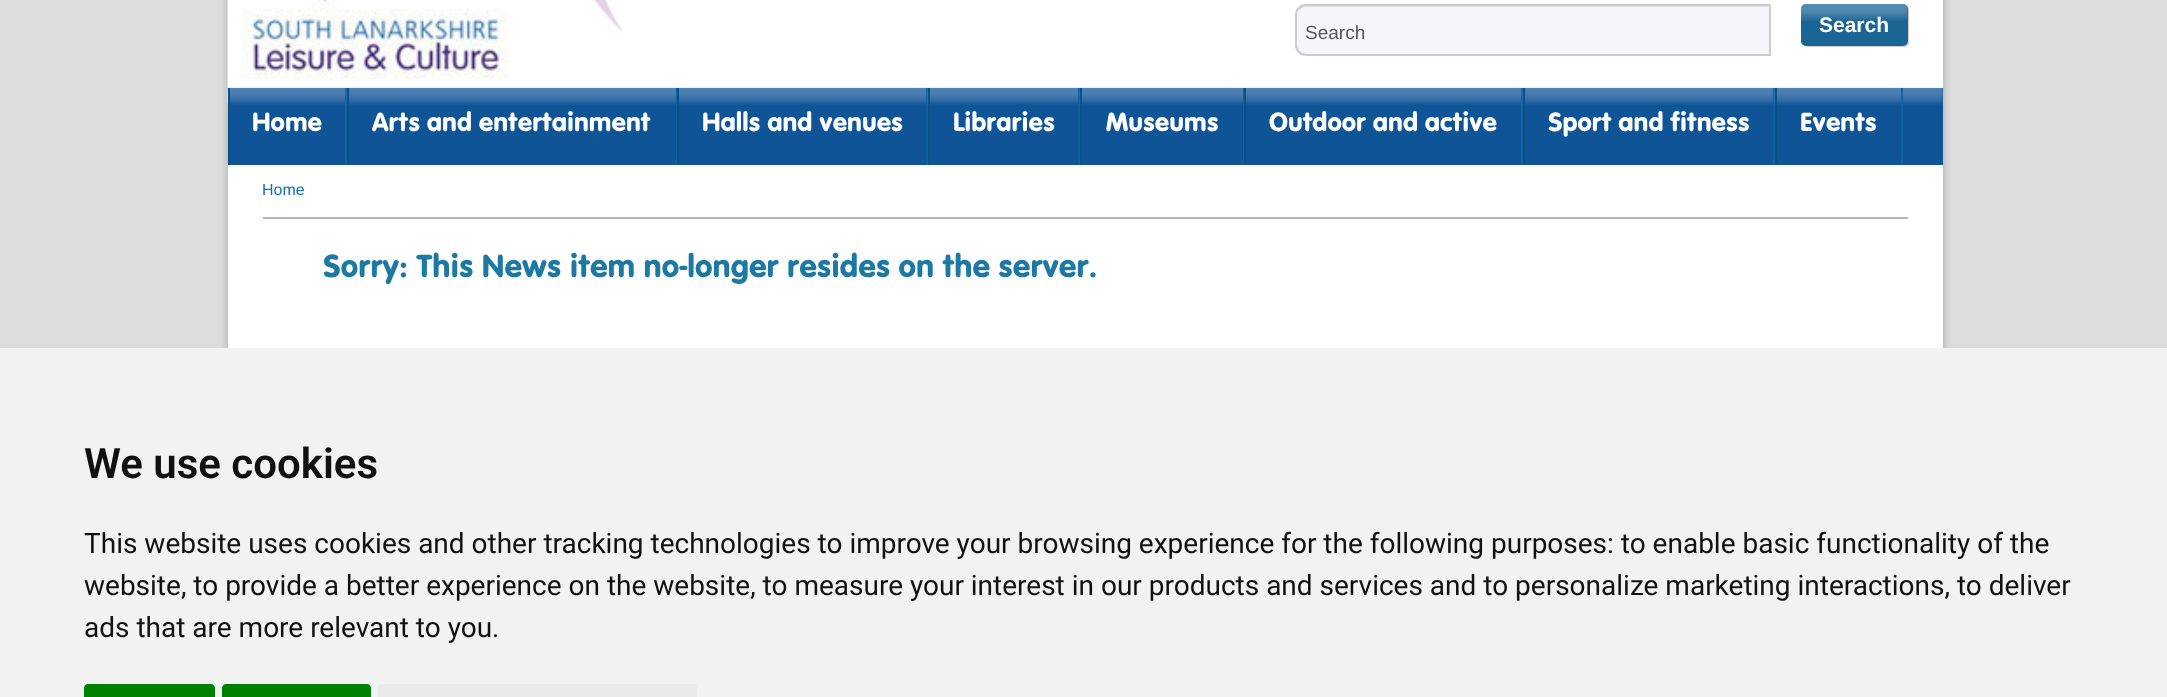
<?xml version="1.0" encoding="UTF-8"?>
<svg xmlns="http://www.w3.org/2000/svg" width="2167" height="697">
    <defs>
        <filter id="blur1" x="-50%" y="-200%" width="200%" height="500%"><feGaussianBlur stdDeviation="4.5"/></filter>
    </defs>
    <rect width="100%" height="100%" fill="#DCDCDC"/>
    <rect x="228" y="-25" width="1715" height="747" rx="11" fill="#000000" fill-opacity="0.25" filter="url(#blur1)"/>
    <rect x="228" y="0" width="1715" height="348" fill="#FFFFFF"/>
    <image x="594" y="0" width="30" height="32" href="img_01.png"/>
    <image x="227" y="0" width="281" height="104" href="img_02.png"/>
    <path d="M 1306 4 H 1771 V 56 H 1306 C 1300 56 1295 51 1295 45 V 15 C 1295 9 1300 4 1306 4 Z" fill="#F4F6F9"/>
    <path d="M 1306 7 H 1769 V 5 H 1306 C 1300 5 1297 10 1297 16 C 1297 11 1301 7 1306 7 Z" fill="#E2E4E6"/>
    <path d="M 1306 5 H 1770 V 55 H 1306 C 1300.5 55 1296 50.5 1296 45 V 15 C 1296 9.5 1300.5 5 1306 5 Z" fill="none" stroke="#CCCCCC" stroke-width="2"/>
    <text x="1305" y="39" font-family="Liberation Sans" font-size="19" fill="#555555">Search</text>
    <path d="M 1804 45 C 1805 46 1806 47 1808 47 H 1904 C 1907 47 1909 45 1909 42 V 10 C 1909 8 1908 7 1907 6 C 1908 8 1908 12 1908 14 V 24 C 1908 48 1911 46 1886 46 Z" fill="#CCCCCC"/>
    <rect x="1801" y="4" width="107" height="42" rx="5" fill="#1B6594"/>
    <image x="1801" y="4" width="107" height="17" href="img_03.png"/>
    <text x="1819" y="32" font-family="Liberation Sans" font-size="21" font-weight="700" fill="#FFFFFF">Search</text>
    <rect x="1903" y="88" width="40" height="77" fill="#0E5497"/>
    <image x="227" y="87" width="1716" height="18" href="img_04.png"/>
    <rect x="230" y="88" width="115" height="77" fill="#0E5497"/>
    <image x="227" y="87" width="120" height="18" href="img_05.png"/>
    <rect x="345" y="88" width="2" height="77" fill="#0E63A4"/>
    <rect x="228" y="88" width="2" height="77" fill="#0A5085"/>
    <text x="252" y="131" font-family="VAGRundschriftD" font-size="27.25" fill="#FFFFFF">Home</text>
    <rect x="349" y="88" width="327" height="77" fill="#0E5497"/>
    <image x="346" y="87" width="332" height="18" href="img_06.png"/>
    <rect x="676" y="88" width="1" height="77" fill="#0E63A4"/>
    <rect x="347" y="88" width="2" height="77" fill="#0A5085"/>
    <text x="372" y="131" font-family="VAGRundschriftD" font-size="27.25" fill="#FFFFFF">Arts and entertainment</text>
    <rect x="679" y="88" width="247" height="77" fill="#0E5497"/>
    <image x="677" y="87" width="251" height="18" href="img_07.png"/>
    <rect x="926" y="88" width="2" height="77" fill="#0E63A4"/>
    <rect x="677" y="88" width="2" height="77" fill="#0A5085"/>
    <text x="702" y="131" font-family="VAGRundschriftD" font-size="27.25" fill="#FFFFFF">Halls and venues</text>
    <rect x="930" y="88" width="148" height="77" fill="#0E5497"/>
    <image x="927" y="87" width="153" height="18" href="img_08.png"/>
    <rect x="1078" y="88" width="2" height="77" fill="#0E63A4"/>
    <rect x="928" y="88" width="2" height="77" fill="#0A5085"/>
    <text x="953" y="131" font-family="VAGRundschriftD" font-size="27.25" fill="#FFFFFF">Libraries</text>
    <rect x="1082" y="88" width="161" height="77" fill="#0E5497"/>
    <image x="1079" y="87" width="166" height="18" href="img_09.png"/>
    <rect x="1243" y="88" width="1" height="77" fill="#0E63A4"/>
    <rect x="1080" y="88" width="2" height="77" fill="#0A5085"/>
    <text x="1106" y="131" font-family="VAGRundschriftD" font-size="27.25" fill="#FFFFFF">Museums</text>
    <rect x="1246" y="88" width="275" height="77" fill="#0E5497"/>
    <image x="1244" y="87" width="279" height="18" href="img_10.png"/>
    <rect x="1521" y="88" width="2" height="77" fill="#0E63A4"/>
    <rect x="1244" y="88" width="2" height="77" fill="#0A5085"/>
    <text x="1269" y="131" font-family="VAGRundschriftD" font-size="27.25" fill="#FFFFFF">Outdoor and active</text>
    <rect x="1525" y="88" width="248" height="77" fill="#0E5497"/>
    <image x="1522" y="87" width="253" height="18" href="img_11.png"/>
    <rect x="1773" y="88" width="2" height="77" fill="#0E63A4"/>
    <rect x="1523" y="88" width="2" height="77" fill="#0A5085"/>
    <text x="1548" y="131" font-family="VAGRundschriftD" font-size="27.25" fill="#FFFFFF">Sport and fitness</text>
    <rect x="1777" y="88" width="124" height="77" fill="#0E5497"/>
    <image x="1774" y="87" width="129" height="18" href="img_12.png"/>
    <rect x="1901" y="88" width="2" height="77" fill="#0E63A4"/>
    <rect x="1775" y="88" width="2" height="77" fill="#0A5085"/>
    <text x="1800" y="131" font-family="VAGRundschriftD" font-size="27.25" fill="#FFFFFF">Events</text>
    <rect x="263" y="217" width="1645" height="2" fill="#AFB5BA"/>
    <text x="262" y="195" font-family="Liberation Sans" font-size="16" fill="#126EC4">Home</text>
    <text x="323" y="277" font-family="VAGRundschriftD" font-size="33.25" fill="#1D79A4">Sorry: This News item no-longer resides on the server.</text>
    <rect x="0" y="348" width="2167" height="349" fill="#F2F2F2"/>
    <text x="84" y="478" font-family="Roboto" font-size="42" font-weight="600" fill="#111111">We use cookies</text>
    <text font-family="Roboto" font-size="28" fill="#111111">
        <tspan x="84" y="553">This website uses cookies and other tracking technologies to improve your browsing experience for the following purposes: to enable basic functionality of the</tspan>
        <tspan x="84" y="595">website, to provide a better experience on the website, to measure your interest in our products and services and to personalize marketing interactions, to deliver</tspan>
        <tspan x="84" y="637">ads that are more relevant to you.</tspan>
    </text>
    <path d="M 88 684 H 211 C 213 684 215 686 215 688 V 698 H 84 V 688 C 84 686 86 684 88 684 Z" fill="#008000"/>
    <path d="M 226 684 H 367 C 369 684 371 686 371 688 V 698 H 222 V 688 C 222 686 224 684 226 684 Z" fill="#008000"/>
    <path d="M 382 684 H 693 C 695 684 697 686 697 688 V 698 H 378 V 688 C 378 686 380 684 382 684 Z" fill="#EAEAEA"/>
</svg>
